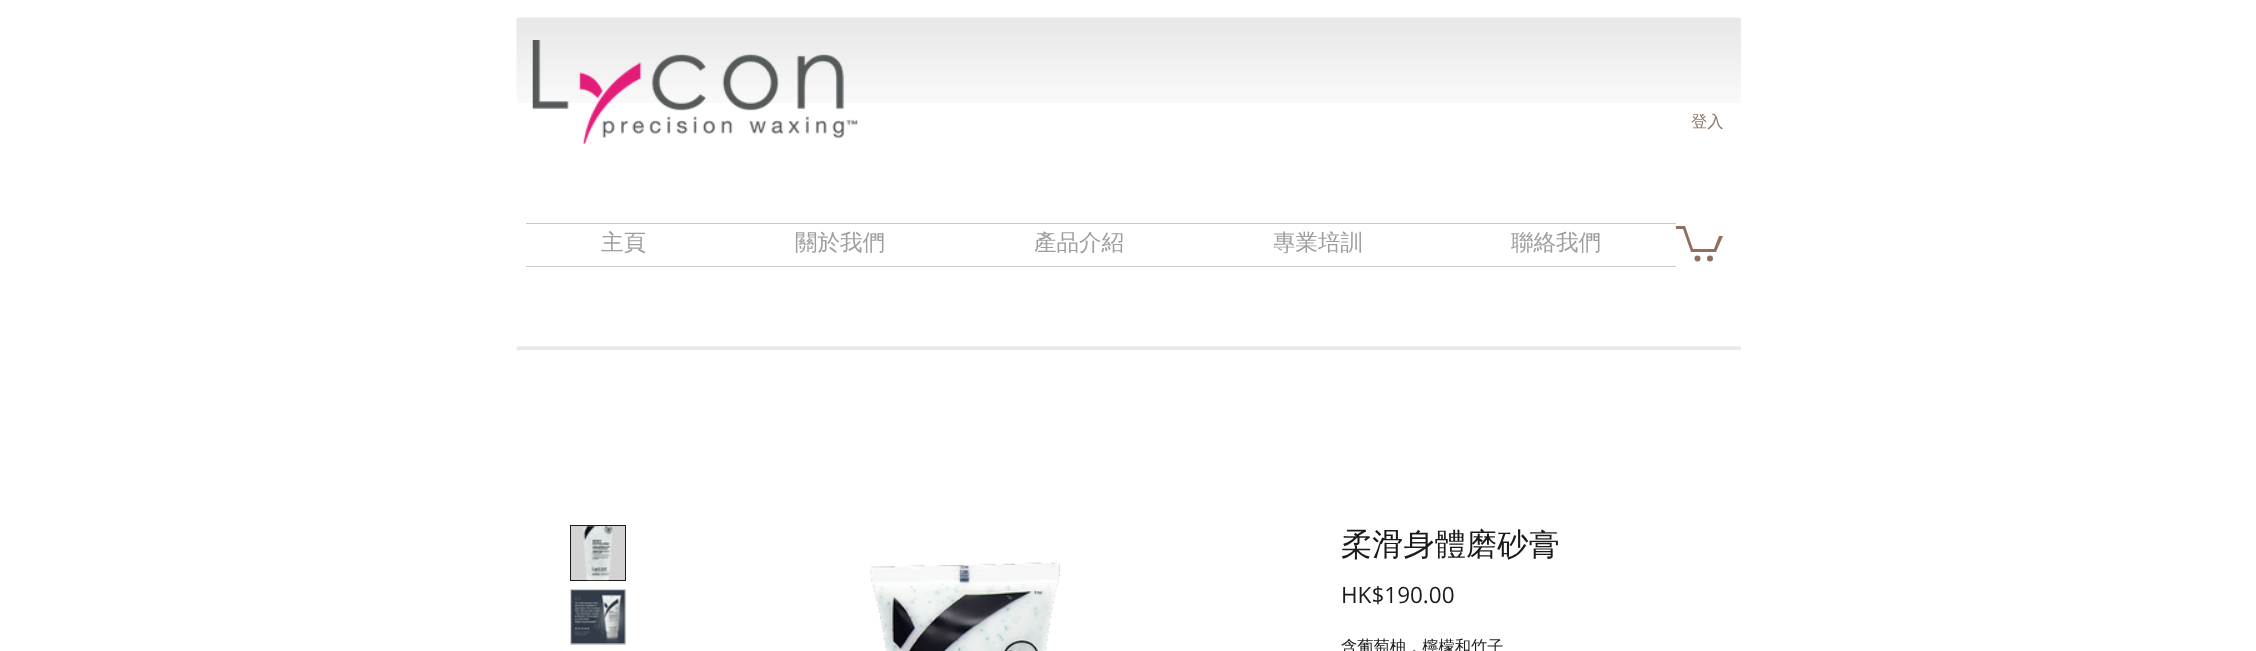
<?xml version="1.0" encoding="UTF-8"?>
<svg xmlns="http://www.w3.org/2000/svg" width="2256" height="651">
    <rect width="100%" height="100%" fill="#FFFFFF"/>
    <image x="516" y="17" width="1225" height="86" href="img_01.png"/>
    <image x="532" y="40" width="326" height="104" href="img_02.png"/>
    <path d="M 1723 236 L 1716 252 H 1691 L 1683 229 H 1676 V 226 H 1685 L 1693 249 H 1714 L 1719 236" fill="#8F705E"/>
    <circle cx="1710" cy="258.5" r="3" fill="#8F705E"/>
    <circle cx="1697.5" cy="258.5" r="3" fill="#8F705E"/>
    <text x="1691" y="127" font-family="WenQuanYi Zen Hei" font-size="16.25" font-weight="500" fill="#8F705E">登入</text>
    <rect x="526" y="223" width="1150" height="1" fill="#CACACA"/>
    <rect x="526" y="266" width="1150" height="1" fill="#CACACA"/>
    <text x="601" y="250" font-family="WenQuanYi Zen Hei" font-size="22.5" font-weight="500" fill="#9E9E9E">主頁</text>
    <text x="795" y="250" font-family="WenQuanYi Zen Hei" font-size="22.5" font-weight="500" fill="#9E9E9E">關於我們</text>
    <text x="1034" y="250" font-family="WenQuanYi Zen Hei" font-size="22.5" font-weight="500" fill="#9E9E9E">產品介紹</text>
    <text x="1273" y="250" font-family="WenQuanYi Zen Hei" font-size="22.5" font-weight="500" fill="#9E9E9E">專業培訓</text>
    <text x="1511" y="250" font-family="WenQuanYi Zen Hei" font-size="22.5" font-weight="500" fill="#9E9E9E">聯絡我們</text>
    <image x="516" y="346" width="1225" height="4" href="img_03.png"/>
    <rect x="570.5" y="525.5" width="55" height="55" fill="#D4D3D3" stroke="#1A1A1A"/>
    <image x="582" y="526" width="32" height="55" href="img_04.png"/>
    <rect x="570" y="589" width="56" height="56" fill="#D4D3D3"/>
    <image x="571" y="589" width="55" height="56" href="img_05.png"/>
    <image x="870" y="562" width="191" height="89" href="img_06.png"/>
    <text x="1341" y="555" font-family="WenQuanYi Zen Hei" font-size="31.25" font-weight="500" fill="#1A1A1A">柔滑身體磨砂膏</text>
    <text x="1341" y="603" font-family="Open Sans" font-size="22.5" fill="#1A1A1A">HK$190.00</text>
    <text x="1341" y="652" font-family="WenQuanYi Zen Hei" font-size="16.25" font-weight="500" fill="#1A1A1A">含葡萄柚，檸檬和竹子</text>
</svg>
